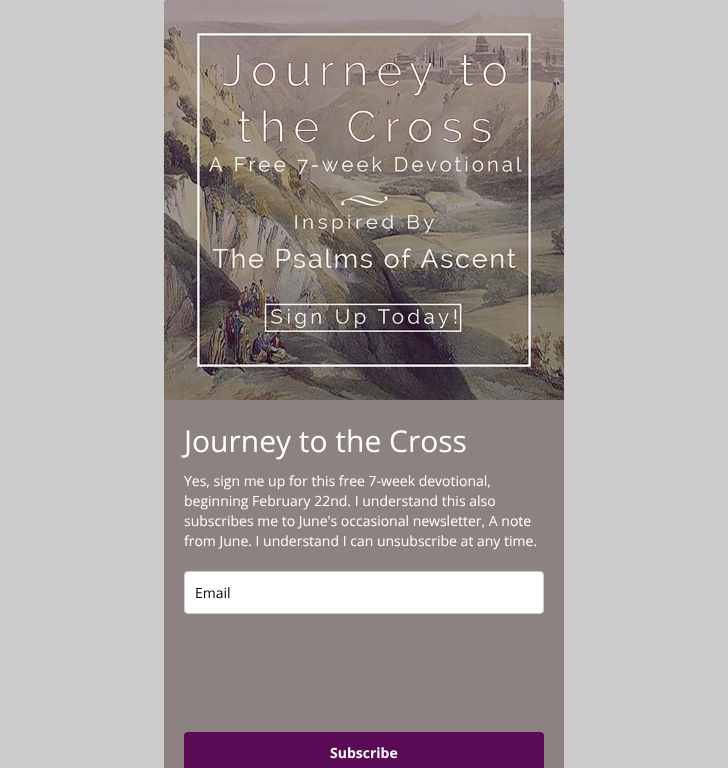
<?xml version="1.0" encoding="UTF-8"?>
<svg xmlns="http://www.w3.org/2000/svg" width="728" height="768">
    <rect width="100%" height="100%" fill="#CCCCCC"/>
    <rect x="164" y="0" width="400" height="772" rx="4" fill="#8D8282"/>
    <image x="164" y="0" width="400" height="400" href="img_01.png"/>
    <text x="184" y="452" font-family="Open Sans" font-size="30" fill="#FFFFFF">Journey to the Cross</text>
    <text font-family="Open Sans" font-size="14" fill="#FFFFFF">
        <tspan x="184" y="486">Yes, sign me up for this free 7-week devotional,</tspan>
        <tspan x="184" y="506">beginning February 22nd. I understand this also</tspan>
        <tspan x="184" y="526">subscribes me to June's occasional newsletter, A note</tspan>
        <tspan x="184" y="546">from June. I understand I can unsubscribe at any time.</tspan>
    </text>
    <rect x="184.5" y="571.5" width="359" height="42" rx="3.5" fill="#FFFFFF" stroke="#CCCCCC"/>
    <text x="195" y="598" font-family="Open Sans" font-size="14" fill="#000000">Email</text>
    <rect x="184" y="732" width="360" height="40" rx="4" fill="#5A0B56"/>
    <text x="330" y="758" font-family="Open Sans" font-size="14" font-weight="700" fill="#FFFFFF">Subscribe</text>
</svg>
